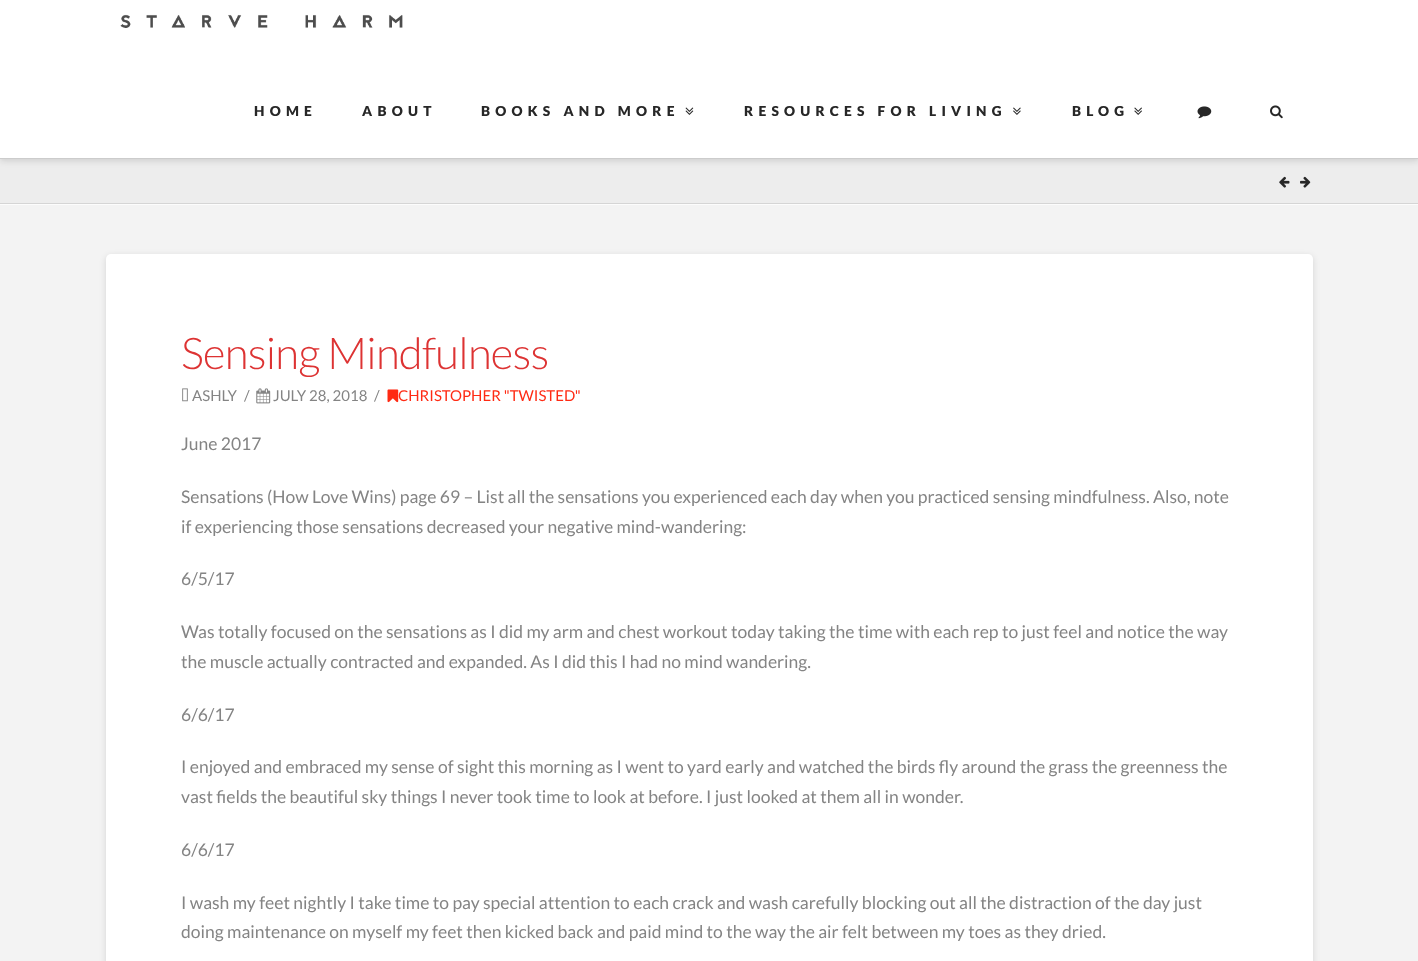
<?xml version="1.0" encoding="UTF-8"?>
<svg xmlns="http://www.w3.org/2000/svg" width="1418" height="961">
    <defs>
        <filter id="blur1" x="-50%" y="-200%" width="200%" height="500%"><feGaussianBlur stdDeviation="3"/></filter>
    </defs>
    <rect width="100%" height="100%" fill="#F3F3F3"/>
    <rect x="0" y="159" width="1418" height="44" fill="#EDEDED"/>
    <rect x="0" y="-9" width="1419" height="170" fill="#000000" fill-opacity="0.13" filter="url(#blur1)"/>
    <rect x="0" y="0" width="1418" height="158" fill="#FFFFFF"/>
    <rect x="0" y="158" width="1418" height="1" fill="#CCCCCC"/>
    <image x="120" y="14" width="283" height="14" href="img_01.png"/>
    <text x="254" y="116" font-family="Lato" font-size="13.75" font-weight="900" letter-spacing="5.25" fill="#272727">HOME</text>
    <text x="362" y="116" font-family="Lato" font-size="13.75" font-weight="900" letter-spacing="5.25" fill="#272727">ABOUT</text>
    <text x="481" y="116" font-family="Lato" font-size="13.75" font-weight="900" letter-spacing="5.25" fill="#272727">BOOKS AND MORE</text>
    <image x="685" y="107" width="9" height="8" href="img_02.png"/>
    <text x="744" y="116" font-family="Lato" font-size="13.75" font-weight="900" letter-spacing="5.25" fill="#272727">RESOURCES FOR LIVING</text>
    <image x="1013" y="107" width="8" height="8" href="img_03.png"/>
    <text x="1072" y="116" font-family="Lato" font-size="13.75" font-weight="900" letter-spacing="5.25" fill="#272727">BLOG</text>
    <image x="1134" y="107" width="8" height="8" href="img_04.png"/>
    <image x="1197" y="106" width="15" height="13" href="img_05.png"/>
    <image x="1270" y="105" width="13" height="14" href="img_06.png"/>
    <path d="M 0 204 V 205 H 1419 V 160 V 204 Z" fill="#FCFCFC"/>
    <rect x="0" y="203" width="1418" height="1" fill="#D5D5D5"/>
    <image x="1279" y="176" width="11" height="12" href="img_07.png"/>
    <image x="1300" y="176" width="11" height="12" href="img_08.png"/>
    <rect x="106" y="256" width="1207" height="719" rx="5" fill="#000000" fill-opacity="0.13" filter="url(#blur1)"/>
    <rect x="106" y="254" width="1207" height="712" rx="5" fill="#FFFFFF"/>
    <text x="181" y="369" font-family="Lato" font-size="43.75" font-weight="300" letter-spacing="-0.75" fill="#DD3333">Sensing Mindfulness</text>
    <image x="182" y="388" width="6" height="14" href="img_09.png"/>
    <text x="192" y="401" font-family="Lato" font-size="15" fill="#848484">ASHLY</text>
    <text x="244" y="401" font-family="Lato" font-size="15" fill="#848484">/</text>
    <image x="256" y="388" width="15" height="16" href="img_10.png"/>
    <text x="273" y="401" font-family="Lato" font-size="15" fill="#848484">JULY 28, 2018</text>
    <text x="374" y="401" font-family="Lato" font-size="15" fill="#848484">/</text>
    <image x="387" y="389" width="12" height="14" href="img_11.png"/>
    <text x="398" y="401" font-family="Lato" font-size="15" fill="#FF2A13">CHRISTOPHER "TWISTED"</text>
    <text x="181" y="450" font-family="Lato" font-size="17.5" fill="#848484">June 2017</text>
    <text font-family="Lato" font-size="17.5" fill="#848484">
        <tspan x="181" y="503">Sensations (How Love Wins) page 69 – List all the sensations you experienced each day when you practiced sensing mindfulness. Also, note</tspan>
        <tspan x="181" y="533">if experiencing those sensations decreased your negative mind-wandering:</tspan>
    </text>
    <text x="181" y="585" font-family="Lato" font-size="17.5" fill="#848484">6/5/17</text>
    <text font-family="Lato" font-size="17.5" fill="#848484">
        <tspan x="181" y="638">Was totally focused on the sensations as I did my arm and chest workout today taking the time with each rep to just feel and notice the way</tspan>
        <tspan x="181" y="668">the muscle actually contracted and expanded. As I did this I had no mind wandering.</tspan>
    </text>
    <text x="181" y="721" font-family="Lato" font-size="17.5" fill="#848484">6/6/17</text>
    <text font-family="Lato" font-size="17.5" fill="#848484">
        <tspan x="181" y="773">I enjoyed and embraced my sense of sight this morning as I went to yard early and watched the birds fly around the grass the greenness the</tspan>
        <tspan x="181" y="803">vast fields the beautiful sky things I never took time to look at before. I just looked at them all in wonder.</tspan>
    </text>
    <text x="181" y="856" font-family="Lato" font-size="17.5" fill="#848484">6/6/17</text>
    <text font-family="Lato" font-size="17.5" fill="#848484">
        <tspan x="181" y="909">I wash my feet nightly I take time to pay special attention to each crack and wash carefully blocking out all the distraction of the day just</tspan>
        <tspan x="181" y="938">doing maintenance on myself my feet then kicked back and paid mind to the way the air felt between my toes as they dried.</tspan>
    </text>
</svg>
